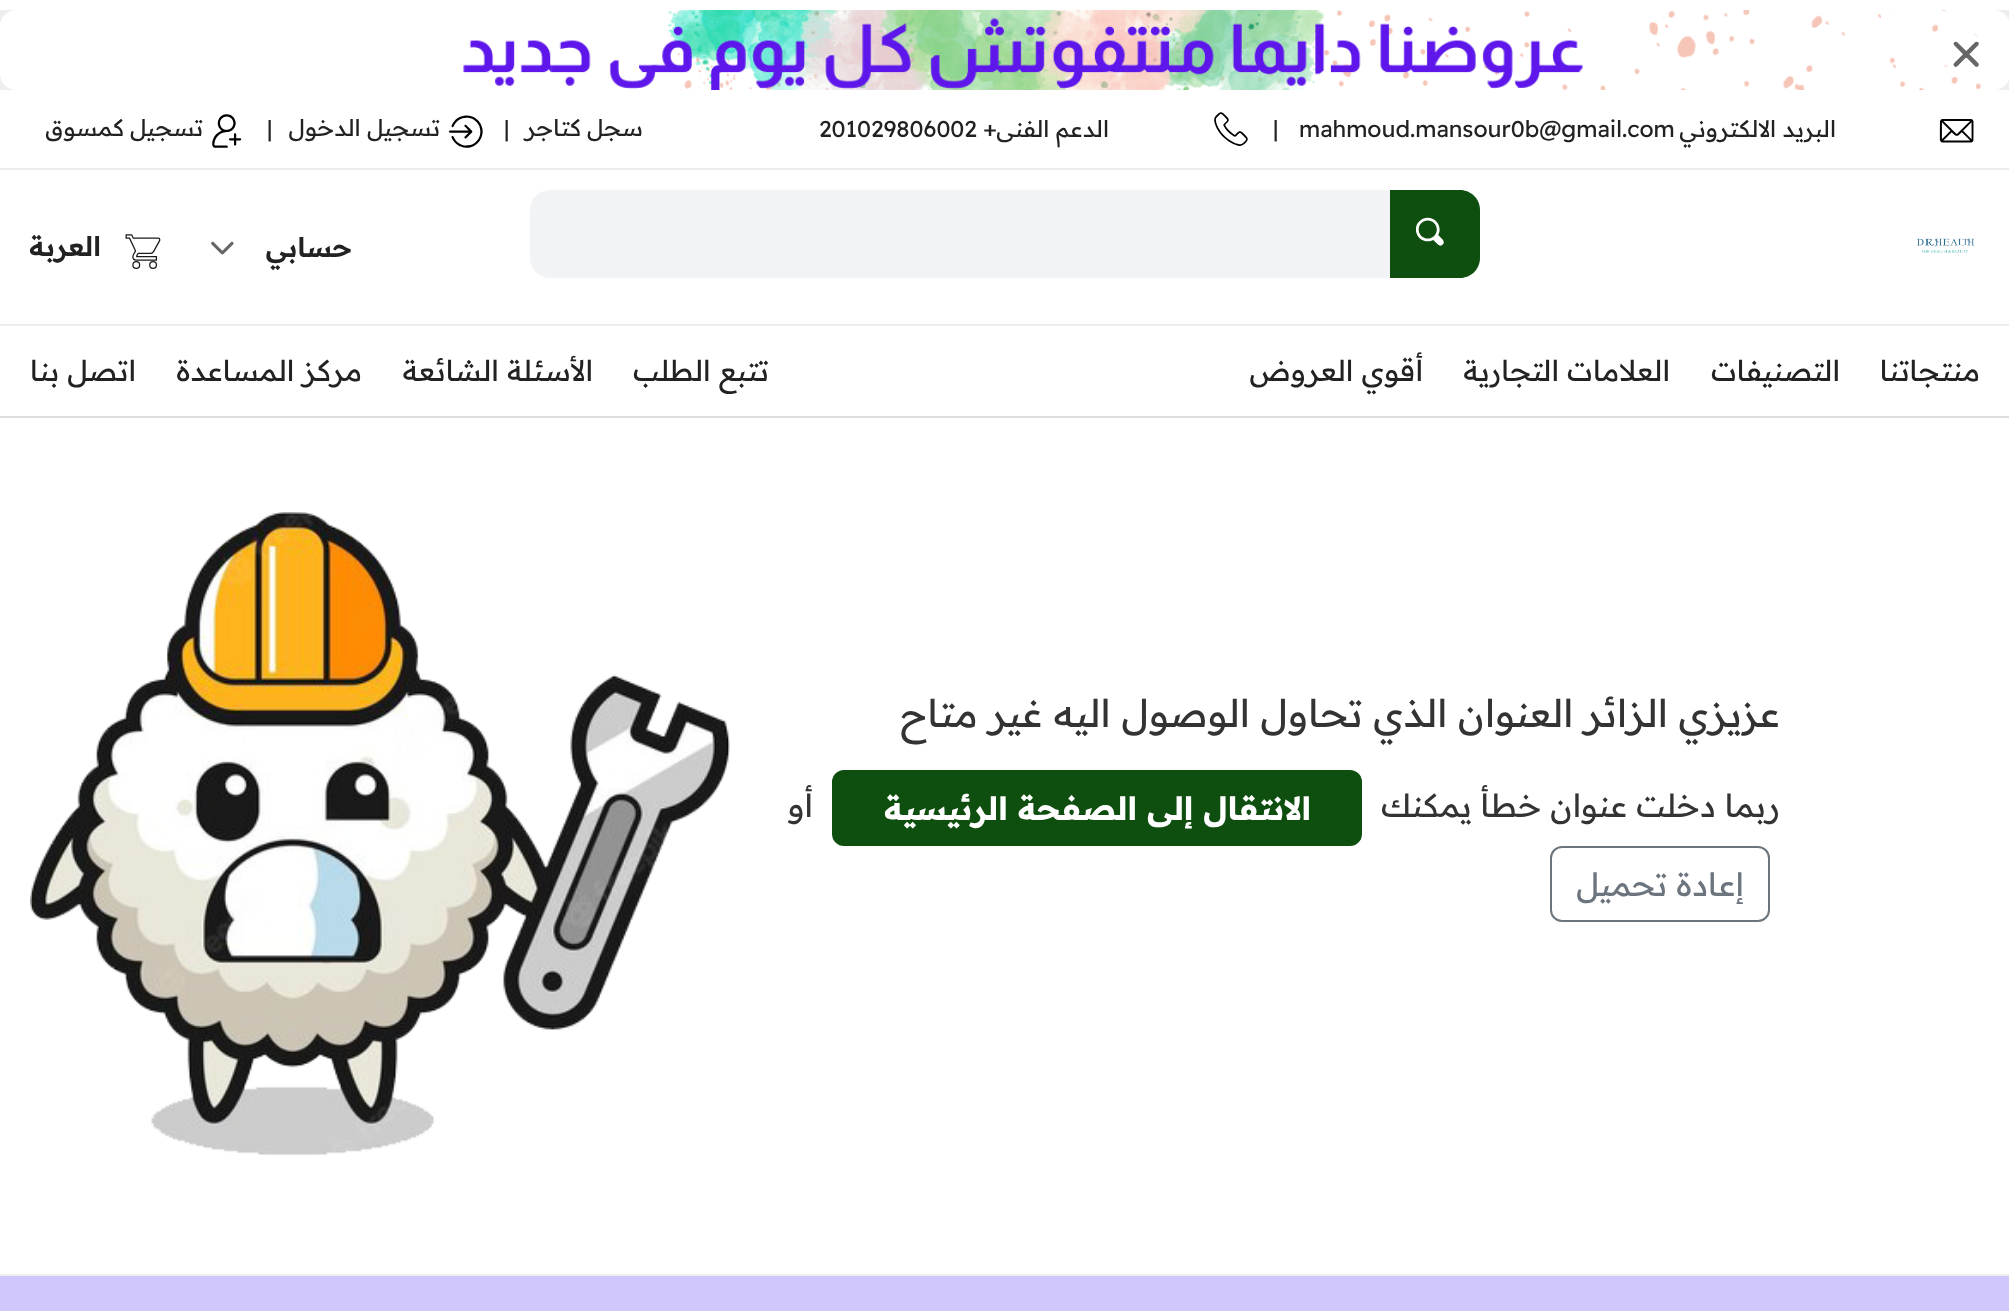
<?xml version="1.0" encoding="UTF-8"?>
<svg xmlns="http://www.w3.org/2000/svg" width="2009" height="1311">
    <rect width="100%" height="100%" fill="#FFFFFF"/>
    <rect x="0" y="10" width="2009" height="80" fill="#EEEEEE"/>
    <image x="0" y="10" width="2009" height="80" href="img_01.png"/>
    <circle cx="1966" cy="54" r="24" fill="#FFFFFF" fill-opacity="0.7"/>
    <image x="1953" y="41" width="26" height="26" href="img_02.png"/>
    <rect x="0" y="168" width="2009" height="2" fill="#EDEDED"/>
    <image x="1939" y="119" width="35" height="24" href="img_03.png"/>
    <text x="1836" y="137" font-family="Readex Pro" font-size="23" direction="rtl" fill="#222222">البريد الالكتروني</text>
    <text x="1299" y="137" font-family="Readex Pro" font-size="23" fill="#222222">mahmoud.mansour0b@gmail.com</text>
    <text x="1273" y="137" font-family="Readex Pro" font-size="23" fill="#222222">|</text>
    <image x="1214" y="112" width="34" height="34" href="img_04.png"/>
    <text x="1109" y="137" font-family="Readex Pro" font-size="23" direction="rtl" fill="#222222">الدعم الفنى</text>
    <text x="819" y="137" font-family="Readex Pro" font-size="23" fill="#222222">201029806002 +</text>
    <text x="643" y="136" font-family="Readex Pro" font-size="23" direction="rtl" fill="#222222">سجل كتاجر</text>
    <text x="504" y="137" font-family="Readex Pro" font-size="23" fill="#222222">|</text>
    <image x="449" y="115" width="34" height="33" href="img_05.png"/>
    <text x="440" y="136" font-family="Readex Pro" font-size="23" direction="rtl" fill="#222222">تسجيل الدخول</text>
    <text x="267" y="137" font-family="Readex Pro" font-size="23" fill="#222222">|</text>
    <image x="212" y="114" width="30" height="34" href="img_06.png"/>
    <text x="203" y="136" font-family="Readex Pro" font-size="23" direction="rtl" fill="#222222">تسجيل كمسوق</text>
    <image x="1917" y="238" width="58" height="15" href="img_07.png"/>
    <rect x="530" y="190" width="950" height="88" rx="20" fill="#F2F3F5"/>
    <path d="M 1390 190 H 1460 C 1471 190 1480 199 1480 210 V 258 C 1480 269 1471 278 1460 278 H 1390 Z" fill="#0E4E0F"/>
    <image x="1416" y="217" width="28" height="29" href="img_08.png"/>
    <text x="352" y="257" font-family="Readex Pro" font-size="27" font-weight="600" direction="rtl" fill="#222222">حسابي</text>
    <image x="211" y="241" width="23" height="14" href="img_09.png"/>
    <image x="125" y="234" width="36" height="35" href="img_10.png"/>
    <text x="101" y="256" font-family="Readex Pro" font-size="27" font-weight="600" direction="rtl" fill="#222222">العربة</text>
    <rect x="0" y="324" width="2009" height="2" fill="#EDEDED"/>
    <rect x="0" y="416" width="2009" height="2" fill="#DDDDDD"/>
    <text x="1980" y="381" font-family="Readex Pro" font-size="28.75" direction="rtl" fill="#222222">منتجاتنا</text>
    <text x="1840" y="381" font-family="Readex Pro" font-size="28.75" direction="rtl" fill="#222222">التصنيفات</text>
    <text x="1670" y="381" font-family="Readex Pro" font-size="28.75" direction="rtl" fill="#222222">العلامات التجارية</text>
    <text x="1423" y="381" font-family="Readex Pro" font-size="28.75" direction="rtl" fill="#222222">أقوي العروض</text>
    <text x="769" y="381" font-family="Readex Pro" font-size="28.75" direction="rtl" fill="#222222">تتبع الطلب</text>
    <text x="593" y="381" font-family="Readex Pro" font-size="28.75" direction="rtl" fill="#222222">الأسئلة الشائعة</text>
    <text x="362" y="381" font-family="Readex Pro" font-size="28.75" direction="rtl" fill="#222222">مركز المساعدة</text>
    <text x="136" y="381" font-family="Readex Pro" font-size="28.75" direction="rtl" fill="#222222">اتصل بنا</text>
    <text x="1780" y="727" font-family="Readex Pro" font-size="38.25" direction="rtl" fill="#333333">عزيزي الزائر العنوان الذي تحاول الوصول اليه غير متاح</text>
    <text x="1780" y="817" font-family="Readex Pro" font-size="31.9" direction="rtl" fill="#333333">ربما دخلت عنوان خطأ يمكنك</text>
    <rect x="833" y="771" width="528" height="74" rx="11" fill="#0E4E0F" stroke="#0E4E0F" stroke-width="2"/>
    <text x="1311" y="820" font-family="Readex Pro" font-size="32" font-weight="700" direction="rtl" fill="#FFFFFF">الانتقال إلى الصفحة الرئيسية</text>
    <text x="813" y="817" font-family="Readex Pro" font-size="31.9" direction="rtl" fill="#333333">أو</text>
    <rect x="1551" y="847" width="218" height="74" rx="11" fill="none" stroke="#6C757D" stroke-width="2"/>
    <text x="1744" y="896" font-family="Readex Pro" font-size="32" direction="rtl" fill="#6C757D">إعادة تحميل</text>
    <image x="30" y="512" width="700" height="644" href="img_11.png"/>
    <rect x="0" y="1276" width="2009" height="35" fill="#D0C8FD"/>
    <rect x="0" y="1274" width="2009" height="2" fill="#EEEEEE"/>
</svg>
